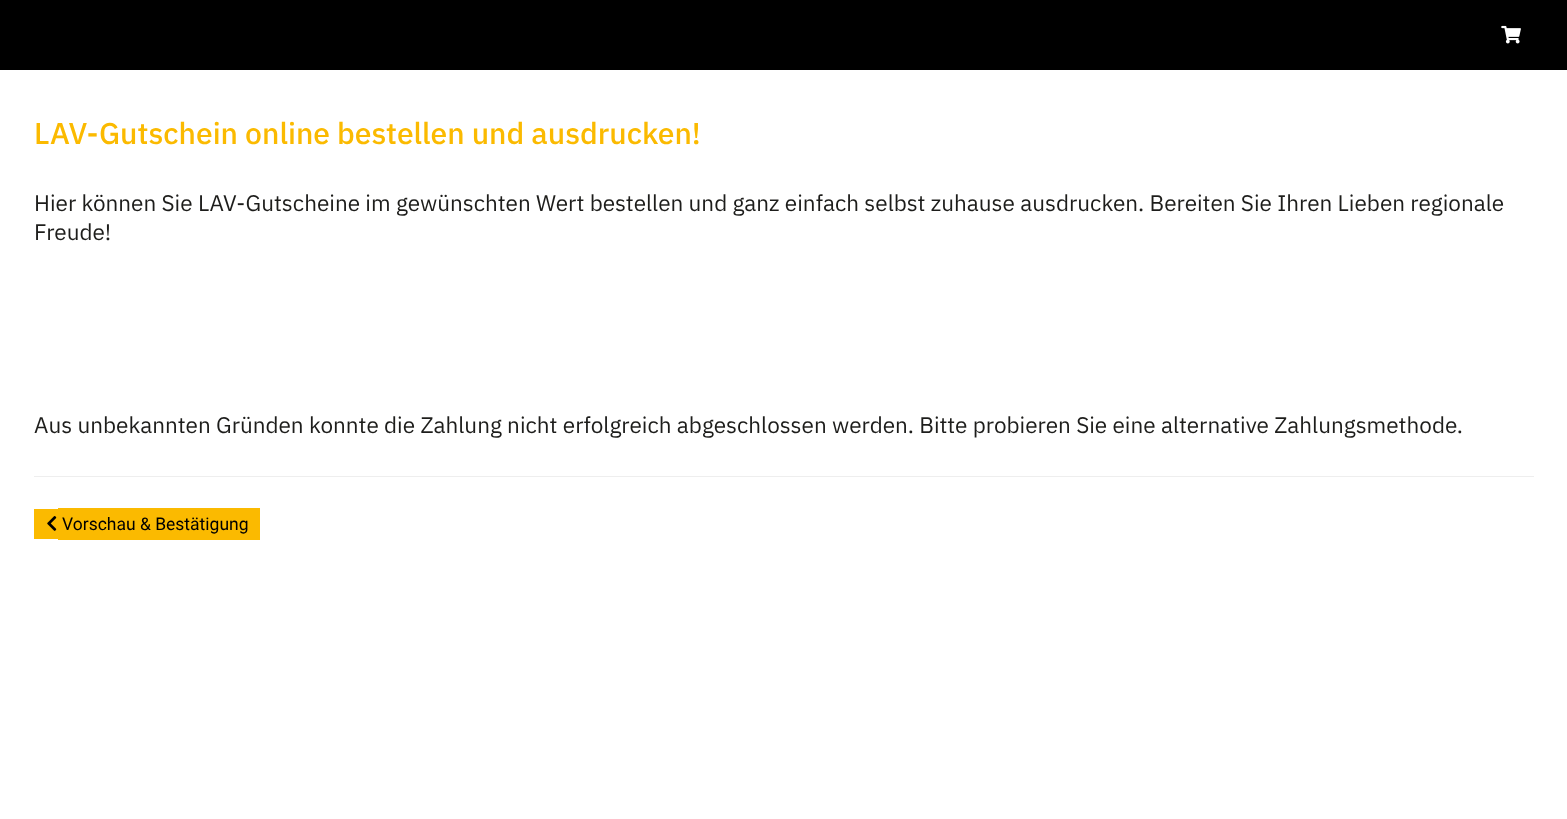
<?xml version="1.0" encoding="UTF-8"?>
<svg xmlns="http://www.w3.org/2000/svg" width="1567" height="819">
    <rect width="100%" height="100%" fill="#FFFFFF"/>
    <rect x="0" y="0" width="1567" height="70" fill="#000000"/>
    <image x="1501" y="25" width="20" height="19" href="img_01.png"/>
    <text x="34" y="144" font-family="IBM Plex Sans" font-size="30" font-weight="500" fill="#FBBA00">LAV-Gutschein online bestellen und ausdrucken!</text>
    <text font-family="IBM Plex Sans" font-size="22.5" fill="#1D1D1B">
        <tspan x="34" y="211">Hier können Sie LAV-Gutscheine im gewünschten Wert bestellen und ganz einfach selbst zuhause ausdrucken. Bereiten Sie Ihren Lieben regionale</tspan>
        <tspan x="34" y="240">Freude!</tspan>
    </text>
    <text x="34" y="433" font-family="IBM Plex Sans" font-size="22.5" fill="#1D1D1B">Aus unbekannten Gründen konnte die Zahlung nicht erfolgreich abgeschlossen werden. Bitte probieren Sie eine alternative Zahlungsmethode.</text>
    <rect x="34" y="476" width="1500" height="1" fill="#EEEEEE"/>
    <rect x="34" y="509" width="24" height="30" fill="#FBBA00"/>
    <rect x="58" y="508" width="202" height="32" fill="#FBBA00"/>
    <image x="47" y="516" width="10" height="15" href="img_02.png"/>
    <text x="62" y="530" font-family="Roboto" font-size="17.5" fill="#000000">Vorschau &amp; Bestätigung</text>
</svg>
